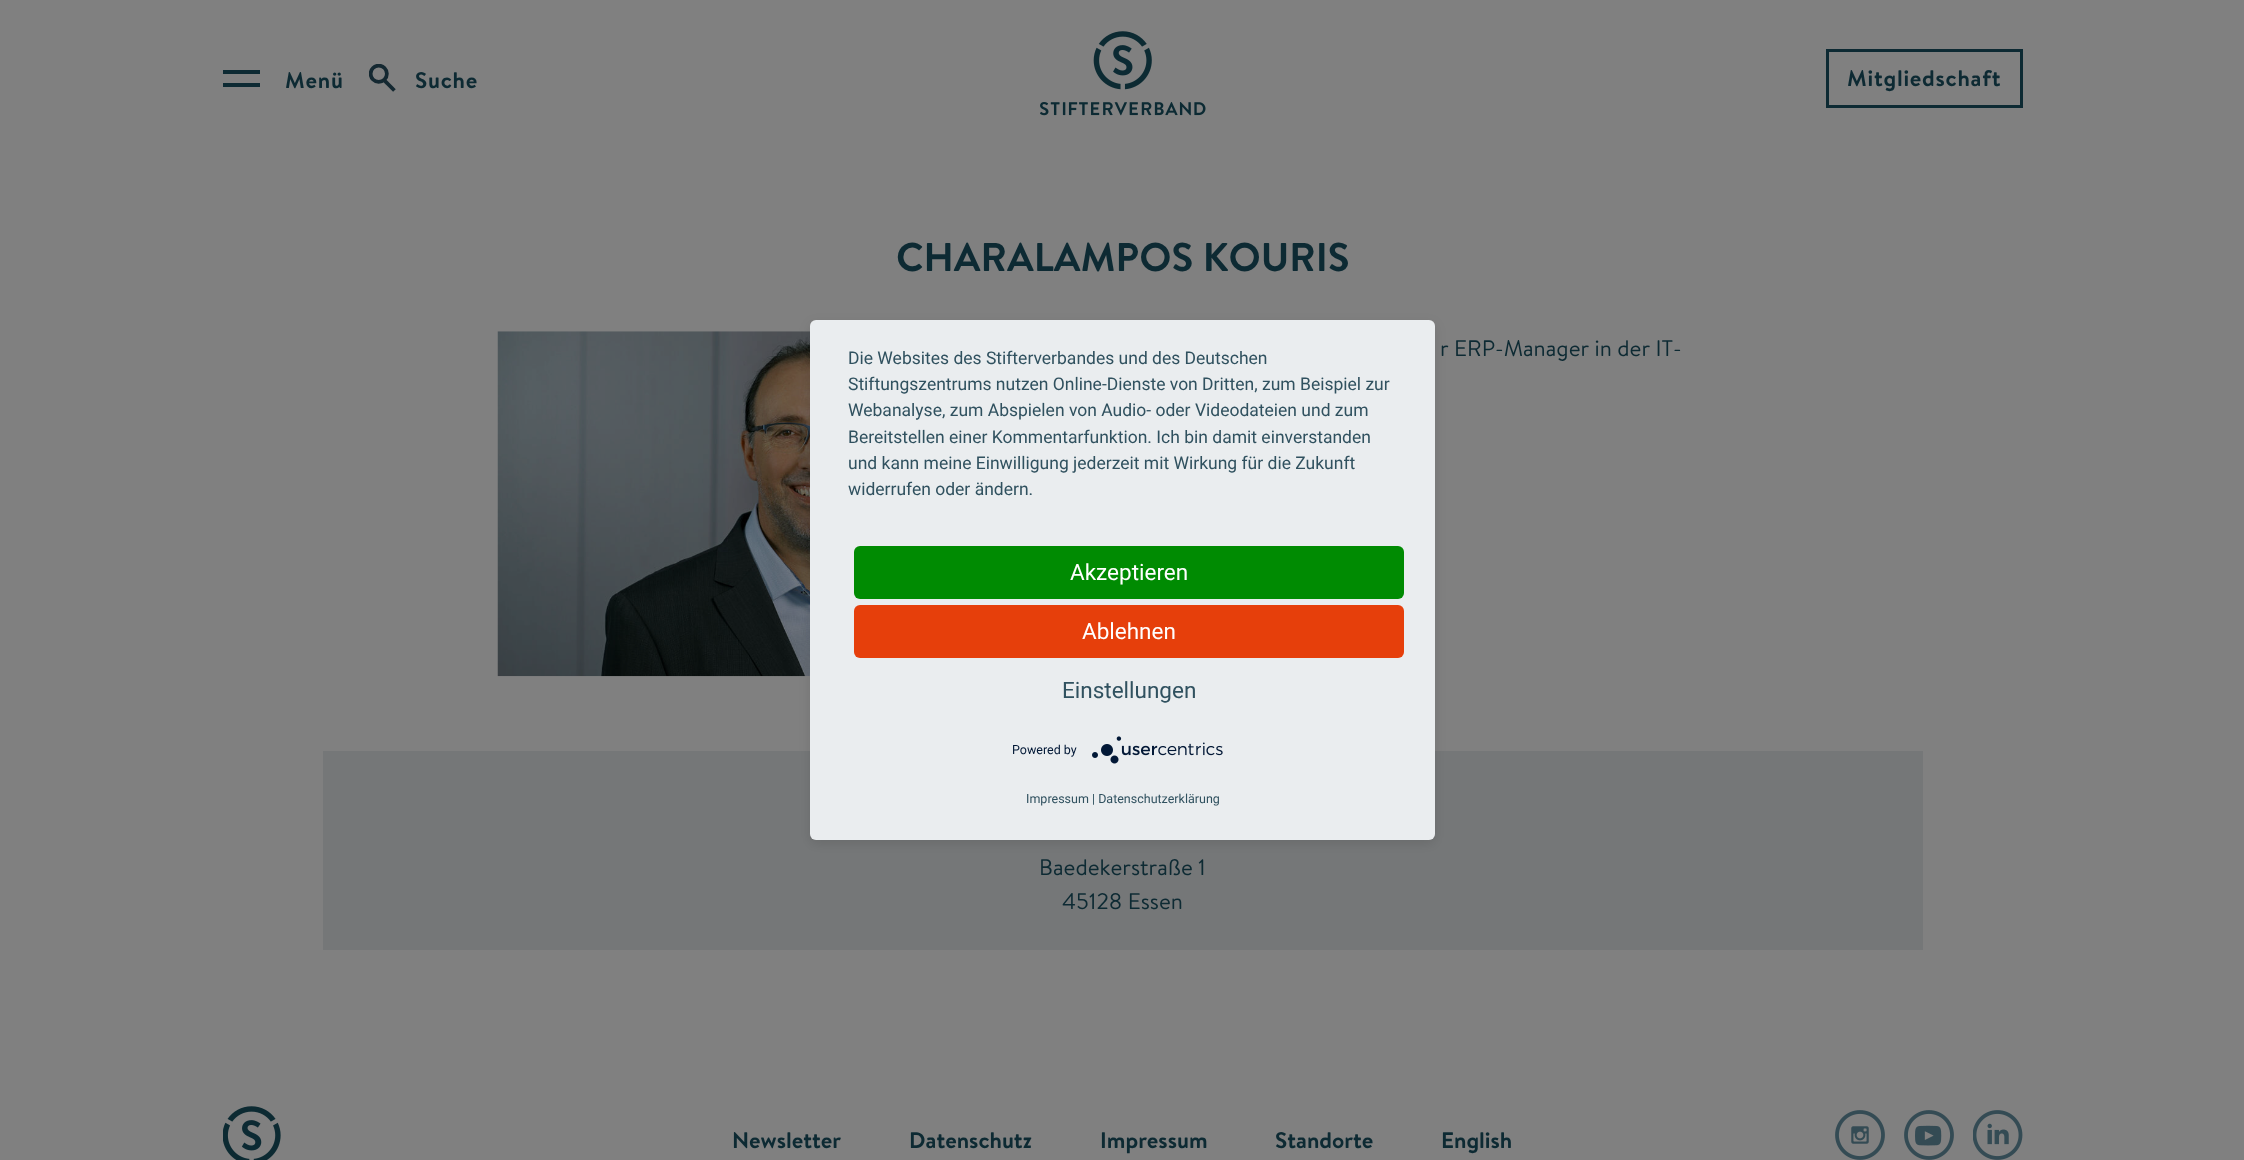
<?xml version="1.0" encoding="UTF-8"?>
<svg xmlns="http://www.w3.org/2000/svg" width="2244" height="1160">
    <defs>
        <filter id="blur1" x="-50%" y="-200%" width="200%" height="500%"><feGaussianBlur stdDeviation="6"/></filter>
    </defs>
    <rect width="100%" height="100%" fill="#808080"/>
    <rect x="223" y="70" width="37" height="4" fill="#0D2A33"/>
    <text x="285" y="88" font-family="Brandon" font-size="22.5" letter-spacing="0.75" fill="#0D2A33">Menü</text>
    <rect x="223" y="83" width="37" height="4" fill="#0D2A33"/>
    <image x="369" y="64" width="27" height="28" href="img_01.png"/>
    <text x="415" y="88" font-family="Brandon" font-size="22.5" letter-spacing="0.75" fill="#0D2A33">Suche</text>
    <image x="1040" y="31" width="166" height="85" href="img_02.png"/>
    <rect x="1827.5" y="50.5" width="194" height="56" fill="none" stroke="#0D2A33" stroke-width="3"/>
    <text x="1847" y="86" font-family="Brandon" font-size="22.5" letter-spacing="0.75" fill="#0D2A33">Mitgliedschaft</text>
    <text x="896" y="271" font-family="Brandon" font-size="40" fill="#0D2A33">CHARALAMPOS KOURIS</text>
    <image x="497" y="331" width="313" height="346" href="img_03.png"/>
    <text x="1440" y="356" font-family="'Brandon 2'" font-size="22.5" fill="#0D2A33">r ERP-Manager in der IT-</text>
    <rect x="323" y="751" width="1600" height="199" fill="#757778"/>
    <text x="1039" y="875" font-family="'Brandon 2'" font-size="22.5" fill="#0D2A33">Baedekerstraße 1</text>
    <text x="1062" y="909" font-family="'Brandon 2'" font-size="22.5" fill="#0D2A33">45128 Essen</text>
    <image x="223" y="1106" width="58" height="54" href="img_04.png"/>
    <text x="732" y="1148" font-family="Brandon" font-size="22.5" fill="#0D2A33">Newsletter</text>
    <text x="909" y="1148" font-family="Brandon" font-size="22.5" fill="#0D2A33">Datenschutz</text>
    <text x="1100" y="1148" font-family="Brandon" font-size="22.5" fill="#0D2A33">Impressum</text>
    <text x="1275" y="1148" font-family="Brandon" font-size="22.5" fill="#0D2A33">Standorte</text>
    <text x="1441" y="1148" font-family="Brandon" font-size="22.5" fill="#0D2A33">English</text>
    <image x="1835" y="1110" width="50" height="50" href="img_05.png"/>
    <image x="1904" y="1110" width="50" height="50" href="img_06.png"/>
    <image x="1973" y="1110" width="50" height="50" href="img_07.png"/>
    <rect x="810" y="324" width="625" height="520" rx="6" fill="#000000" fill-opacity="0.1" filter="url(#blur1)"/>
    <rect x="810" y="320" width="625" height="520" rx="6" fill="#EAEDEF"/>
    <text font-family="Roboto" font-size="17.5" fill="#30515F">
        <tspan x="848" y="364">Die Websites des Stifterverbandes und des Deutschen</tspan>
        <tspan x="848" y="390">Stiftungszentrums nutzen Online-Dienste von Dritten, zum Beispiel zur</tspan>
        <tspan x="848" y="416">Webanalyse, zum Abspielen von Audio- oder Videodateien und zum</tspan>
        <tspan x="848" y="443">Bereitstellen einer Kommentarfunktion. Ich bin damit einverstanden</tspan>
        <tspan x="848" y="469">und kann meine Einwilligung jederzeit mit Wirkung für die Zukunft</tspan>
        <tspan x="848" y="495">widerrufen oder ändern.</tspan>
    </text>
    <rect x="854" y="546" width="550" height="53" rx="6" fill="#008B02"/>
    <text x="1070" y="580" font-family="Roboto" font-size="22.5" fill="#FFFFFF">Akzeptieren</text>
    <rect x="854" y="605" width="550" height="53" rx="6" fill="#E63F0B"/>
    <text x="1082" y="639" font-family="Roboto" font-size="22.5" fill="#FFFFFF">Ablehnen</text>
    <text x="1062" y="698" font-family="Roboto" font-size="22.5" fill="#30515F">Einstellungen</text>
    <text x="1012" y="754" font-family="Roboto" font-size="12.5" fill="#021836">Powered by</text>
    <image x="1092" y="736" width="131" height="28" href="img_08.png"/>
    <text x="1026" y="803" font-family="Roboto" font-size="12.5" fill="#30515F">Impressum | Datenschutzerklärung</text>
</svg>
